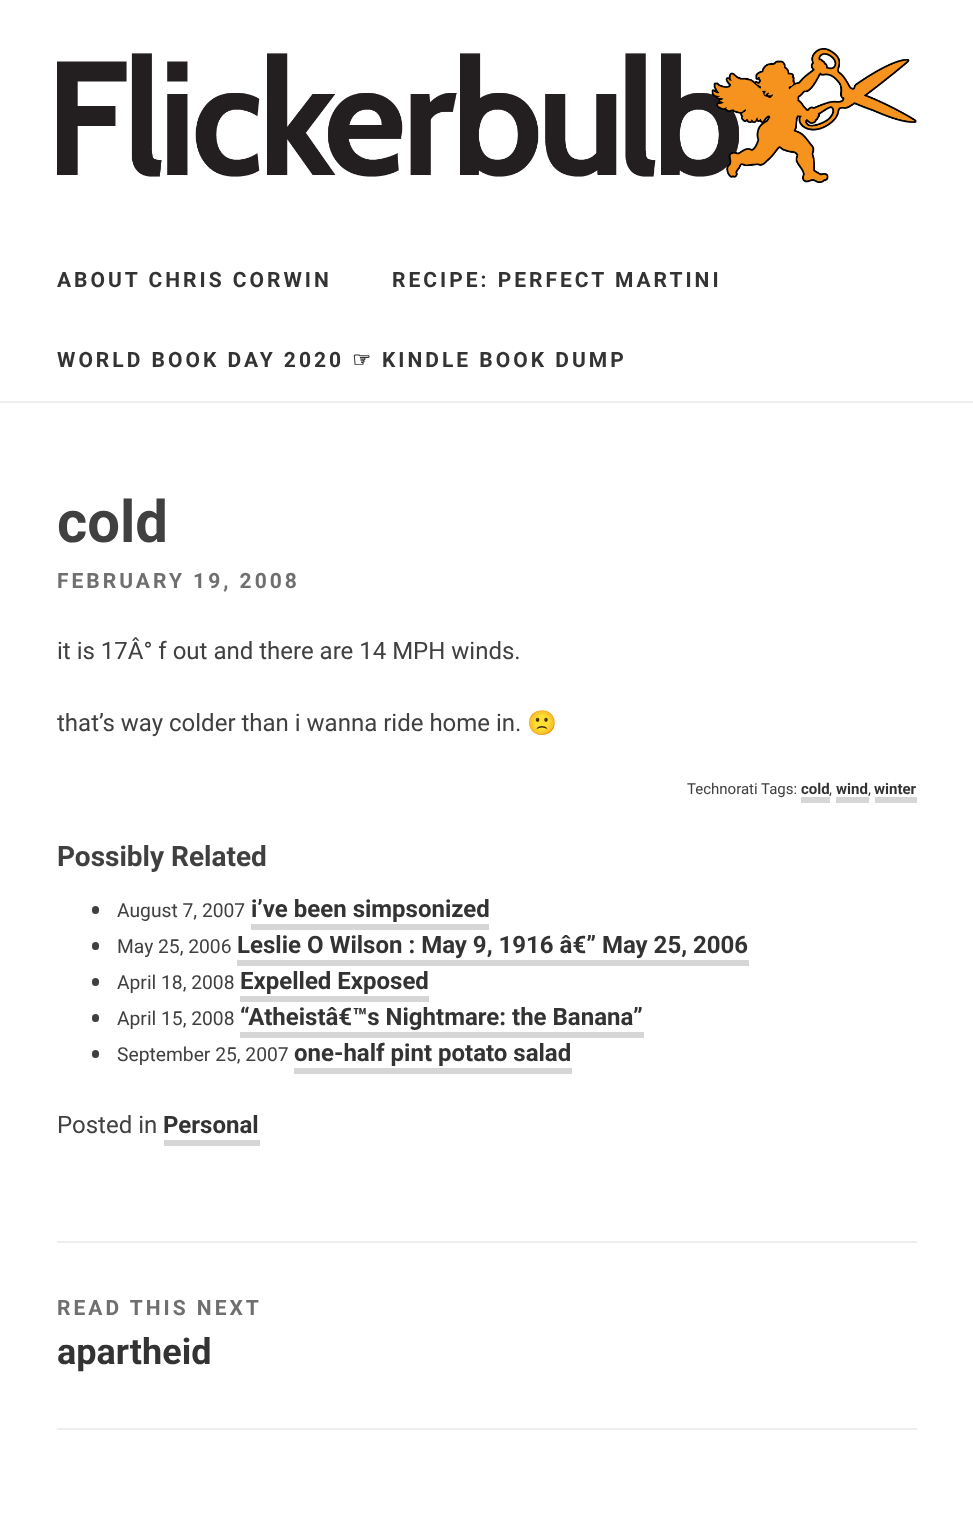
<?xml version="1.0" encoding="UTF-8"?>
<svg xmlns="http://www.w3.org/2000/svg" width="973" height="1535">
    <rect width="100%" height="100%" fill="#FFFFFF"/>
    <rect x="0" y="401" width="973" height="2" fill="#EEEEEE"/>
    <image x="57" y="48" width="860" height="135" href="img_01.png"/>
    <text x="57" y="287" font-family="Roboto" font-size="21" font-weight="700" letter-spacing="3" fill="#333333">ABOUT CHRIS CORWIN</text>
    <text x="392" y="287" font-family="Roboto" font-size="21" font-weight="700" letter-spacing="3" fill="#333333">RECIPE: PERFECT MARTINI</text>
    <text x="57" y="367" font-family="Roboto" font-size="21" font-weight="700" letter-spacing="3" fill="#333333">WORLD BOOK DAY 2020</text>
    <text x="352" y="367" font-family="DejaVu Sans" font-size="21" font-weight="700" letter-spacing="3" fill="#333333">☞</text>
    <text x="382" y="367" font-family="Roboto" font-size="21" font-weight="700" letter-spacing="3" fill="#333333">KINDLE BOOK DUMP</text>
    <text x="57" y="542" font-family="Roboto" font-size="58" font-weight="700" fill="#404040">cold</text>
    <text x="57" y="588" font-family="Roboto" font-size="21" font-weight="700" letter-spacing="3" fill="#6F6F6F">FEBRUARY 19, 2008</text>
    <text x="57" y="659" font-family="Roboto" font-size="24" fill="#404040">it is 17Â° f out and there are 14 MPH winds.</text>
    <text x="57" y="731" font-family="Roboto" font-size="24" fill="#404040">that’s way colder than i wanna ride home in.</text>
    <text x="527" y="731" font-family="Noto Color Emoji" font-size="24" fill="#404040">🙁</text>
    <text x="687" y="794" font-family="Roboto" font-size="15" fill="#404040">Technorati Tags:</text>
    <text x="801" y="794" font-family="Roboto" font-size="15" font-weight="700" fill="#333333">cold</text>
    <rect x="801" y="797" width="29" height="6" fill="#D6D6D6"/>
    <text x="829" y="794" font-family="Roboto" font-size="15" fill="#404040">,</text>
    <text x="836" y="794" font-family="Roboto" font-size="15" font-weight="700" fill="#333333">wind</text>
    <rect x="836" y="797" width="33" height="6" fill="#D6D6D6"/>
    <text x="868" y="794" font-family="Roboto" font-size="15" fill="#404040">,</text>
    <text x="874" y="794" font-family="Roboto" font-size="15" font-weight="700" fill="#333333">winter</text>
    <rect x="875" y="797" width="42" height="6" fill="#D6D6D6"/>
    <text x="57" y="866" font-family="Roboto" font-size="28" font-weight="700" fill="#404040">Possibly Related</text>
    <rect x="92" y="906" width="7" height="8" rx="3.5" fill="#404040"/>
    <text x="117" y="917" font-family="Roboto" font-size="19.25" fill="#404040">August 7, 2007</text>
    <text x="251" y="917" font-family="Roboto" font-size="24" font-weight="700" fill="#333333">i’ve been simpsonized</text>
    <rect x="251" y="924" width="238" height="6" fill="#D6D6D6"/>
    <rect x="92" y="942" width="7" height="8" rx="3.5" fill="#404040"/>
    <text x="117" y="953" font-family="Roboto" font-size="19.25" fill="#404040">May 25, 2006</text>
    <text x="237" y="953" font-family="Roboto" font-size="24" font-weight="700" fill="#333333">Leslie O Wilson : May 9, 1916 â€” May 25, 2006</text>
    <rect x="237" y="960" width="512" height="6" fill="#D6D6D6"/>
    <rect x="92" y="978" width="7" height="8" rx="3.5" fill="#404040"/>
    <text x="117" y="989" font-family="Roboto" font-size="19.25" fill="#404040">April 18, 2008</text>
    <text x="240" y="989" font-family="Roboto" font-size="24" font-weight="700" fill="#333333">Expelled Exposed</text>
    <rect x="240" y="996" width="189" height="6" fill="#D6D6D6"/>
    <rect x="92" y="1014" width="7" height="8" rx="3.5" fill="#404040"/>
    <text x="117" y="1025" font-family="Roboto" font-size="19.25" fill="#404040">April 15, 2008</text>
    <text x="240" y="1025" font-family="Roboto" font-size="24" font-weight="700" fill="#333333">“Atheistâ€™s Nightmare: the Banana”</text>
    <rect x="240" y="1032" width="404" height="6" fill="#D6D6D6"/>
    <rect x="92" y="1050" width="7" height="8" rx="3.5" fill="#404040"/>
    <text x="117" y="1061" font-family="Roboto" font-size="19.25" fill="#404040">September 25, 2007</text>
    <text x="294" y="1061" font-family="Roboto" font-size="24" font-weight="700" fill="#333333">one-half pint potato salad</text>
    <rect x="294" y="1068" width="278" height="6" fill="#D6D6D6"/>
    <text x="57" y="1133" font-family="Roboto" font-size="24" fill="#404040">Posted in</text>
    <text x="163" y="1133" font-family="Roboto" font-size="24" font-weight="700" fill="#333333">Personal</text>
    <rect x="164" y="1140" width="96" height="6" fill="#D6D6D6"/>
    <rect x="57" y="1241" width="860" height="2" fill="#EEEEEE"/>
    <rect x="57" y="1428" width="860" height="2" fill="#EEEEEE"/>
    <text x="57" y="1315" font-family="Roboto" font-size="21" font-weight="700" letter-spacing="3" fill="#6F6F6F">READ THIS NEXT</text>
    <text x="57" y="1364" font-family="Roboto" font-size="36" font-weight="700" fill="#333333">apartheid</text>
</svg>
